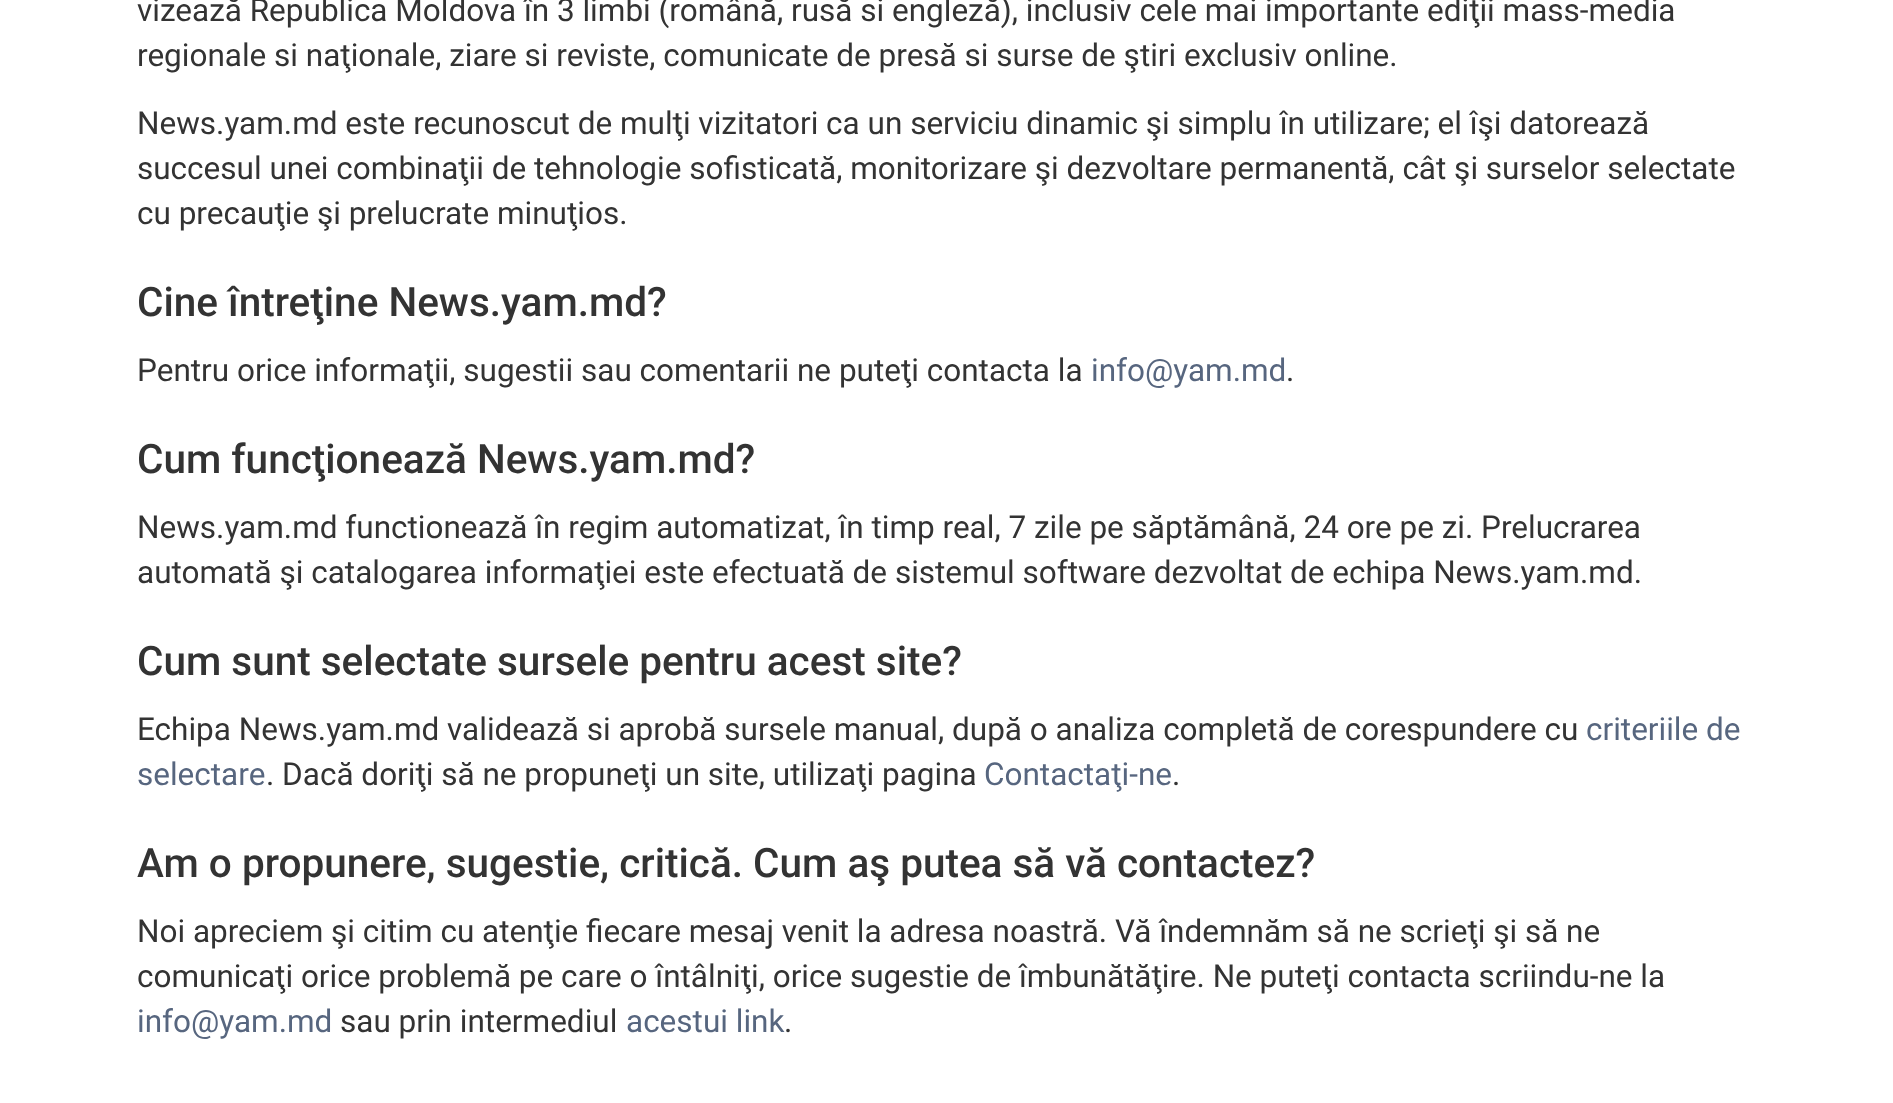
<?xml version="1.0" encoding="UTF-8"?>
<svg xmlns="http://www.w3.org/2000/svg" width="1893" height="1103">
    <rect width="100%" height="100%" fill="#FFFFFF"/>
    <text font-family="Roboto" font-size="31.5" fill="#333333">
        <tspan x="137" y="21">vizează Republica Moldova în 3 limbi (română, rusă si engleză), inclusiv cele mai importante ediţii mass-media</tspan>
        <tspan x="137" y="66">regionale si naţionale, ziare si reviste, comunicate de presă si surse de ştiri exclusiv online.</tspan>
    </text>
    <text font-family="Roboto" font-size="31.5" fill="#333333">
        <tspan x="137" y="134">News.yam.md este recunoscut de mulţi vizitatori ca un serviciu dinamic şi simplu în utilizare; el îşi datorează</tspan>
        <tspan x="137" y="179">succesul unei combinaţii de tehnologie sofisticată, monitorizare şi dezvoltare permanentă, cât şi surselor selectate</tspan>
        <tspan x="137" y="224">cu precauţie şi prelucrate minuţios.</tspan>
    </text>
    <text x="137" y="316" font-family="Roboto" font-size="40.5" font-weight="500" fill="#333333">Cine întreţine News.yam.md?</text>
    <text x="137" y="381" font-family="Roboto" font-size="31.5" fill="#333333">Pentru orice informaţii, sugestii sau comentarii ne puteţi contacta la</text>
    <text x="1091" y="381" font-family="Roboto" font-size="31.5" fill="#57667F">info@yam.md</text>
    <text x="1286" y="381" font-family="Roboto" font-size="31.5" fill="#333333">.</text>
    <text x="137" y="473" font-family="Roboto" font-size="40.5" font-weight="500" fill="#333333">Cum funcţionează News.yam.md?</text>
    <text font-family="Roboto" font-size="31.5" fill="#333333">
        <tspan x="137" y="538">News.yam.md functionează în regim automatizat, în timp real, 7 zile pe săptămână, 24 ore pe zi. Prelucrarea</tspan>
        <tspan x="137" y="583">automată şi catalogarea informaţiei este efectuată de sistemul software dezvoltat de echipa News.yam.md.</tspan>
    </text>
    <text x="137" y="675" font-family="Roboto" font-size="40.5" font-weight="500" fill="#333333">Cum sunt selectate sursele pentru acest site?</text>
    <text x="137" y="740" font-family="Roboto" font-size="31.5" fill="#333333">Echipa News.yam.md validează si aprobă sursele manual, după o analiza completă de corespundere cu</text>
    <text x="1586" y="740" font-family="Roboto" font-size="31.5" fill="#57667F">criteriile de</text>
    <text x="137" y="785" font-family="Roboto" font-size="31.5" fill="#57667F">selectare</text>
    <text x="266" y="785" font-family="Roboto" font-size="31.5" fill="#333333">. Dacă doriţi să ne propuneţi un site, utilizaţi pagina</text>
    <text x="984" y="785" font-family="Roboto" font-size="31.5" fill="#57667F">Contactaţi-ne</text>
    <text x="1172" y="785" font-family="Roboto" font-size="31.5" fill="#333333">.</text>
    <text x="137" y="877" font-family="Roboto" font-size="40.5" font-weight="500" fill="#333333">Am o propunere, sugestie, critică. Cum aş putea să vă contactez?</text>
    <text font-family="Roboto" font-size="31.5" fill="#333333">
        <tspan x="137" y="942">Noi apreciem şi citim cu atenţie fiecare mesaj venit la adresa noastră. Vă îndemnăm să ne scrieţi şi să ne</tspan>
        <tspan x="137" y="987">comunicaţi orice problemă pe care o întâlniţi, orice sugestie de îmbunătăţire. Ne puteţi contacta scriindu-ne la</tspan>
    </text>
    <text x="137" y="1032" font-family="Roboto" font-size="31.5" fill="#57667F">info@yam.md</text>
    <text x="340" y="1032" font-family="Roboto" font-size="31.5" fill="#333333">sau prin intermediul</text>
    <text x="626" y="1032" font-family="Roboto" font-size="31.5" fill="#57667F">acestui link</text>
    <text x="784" y="1032" font-family="Roboto" font-size="31.5" fill="#333333">.</text>
</svg>
